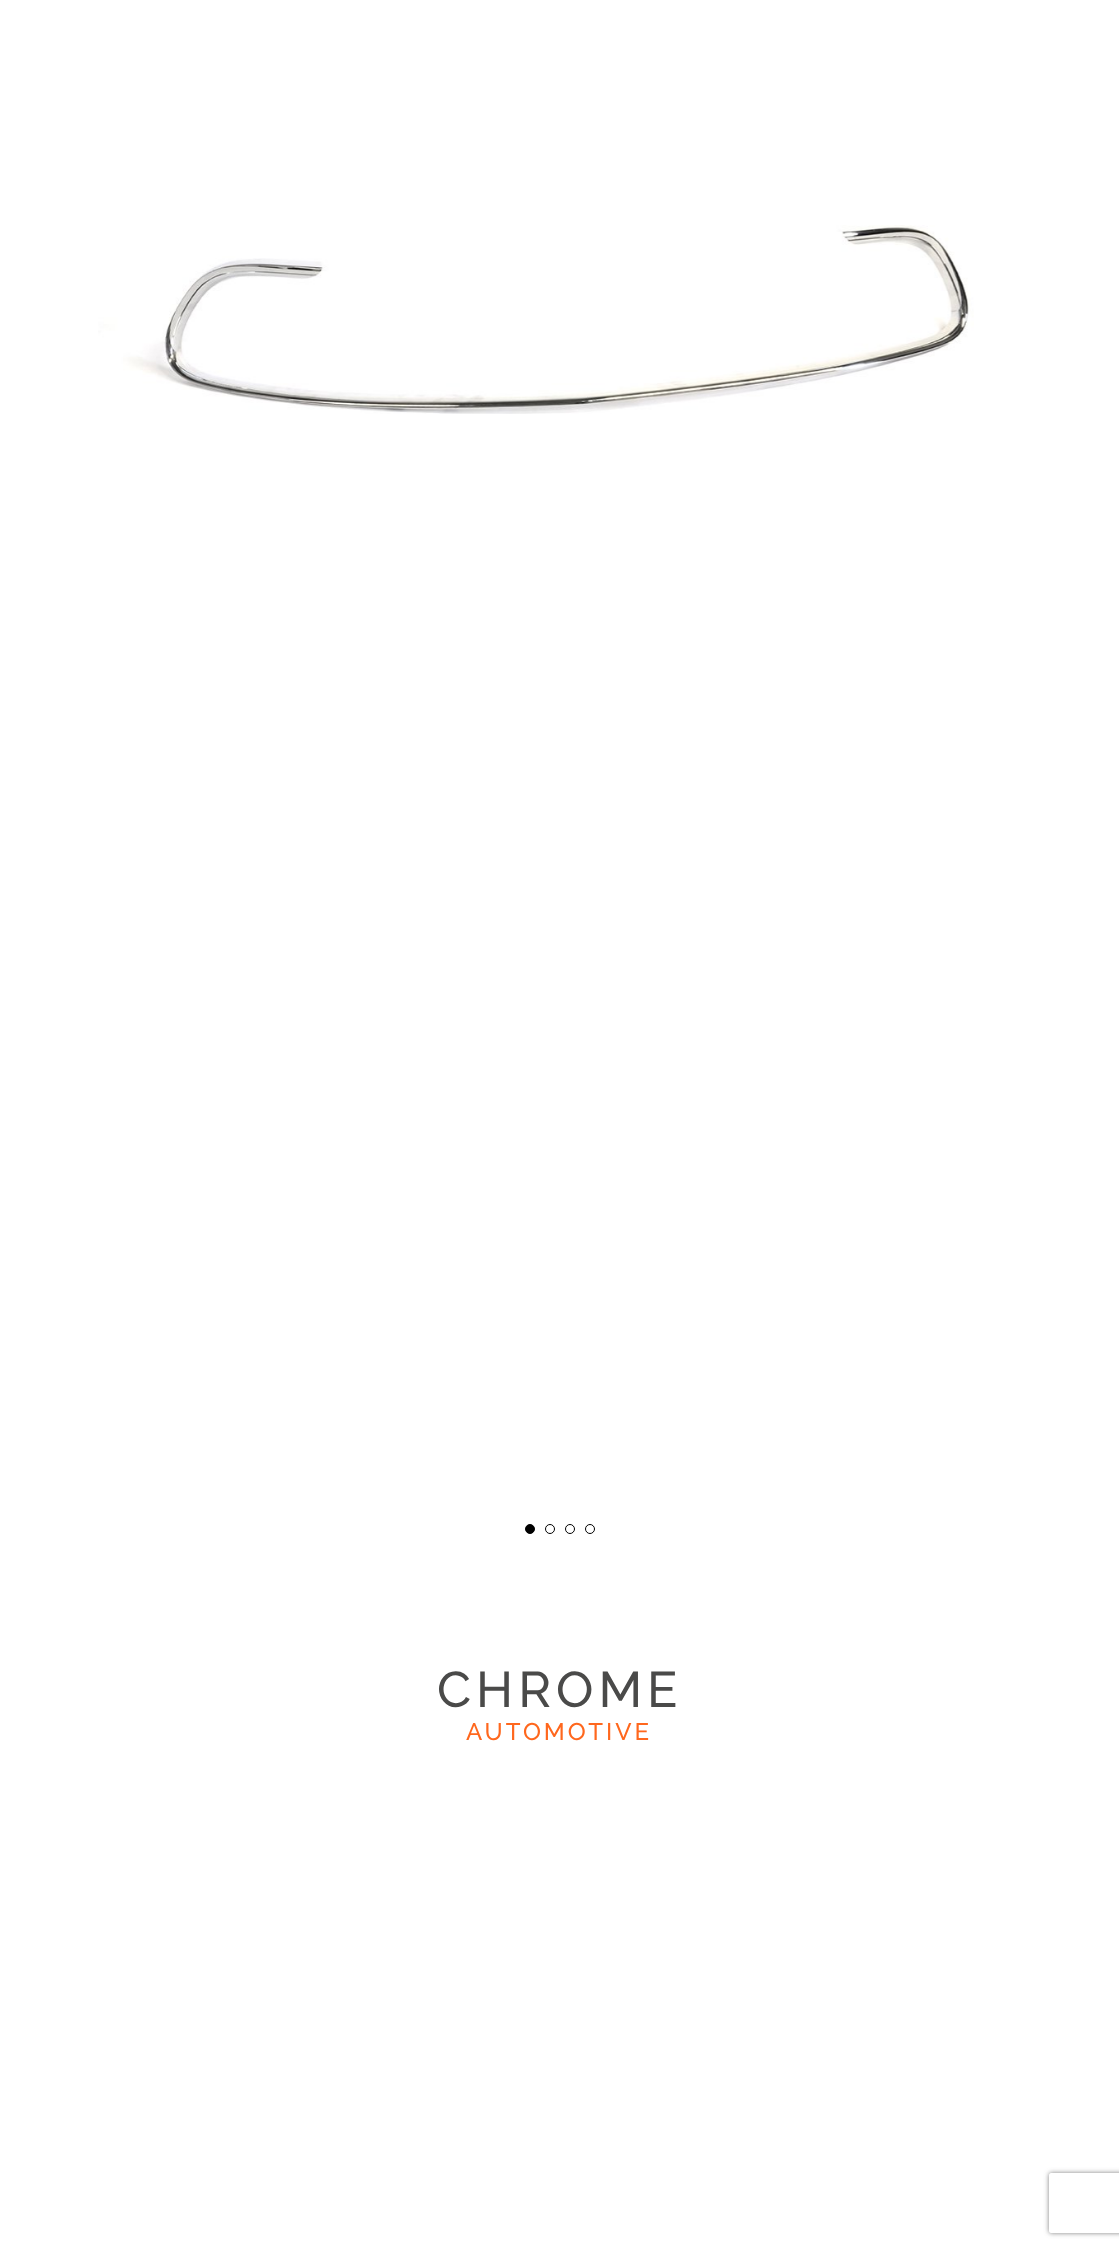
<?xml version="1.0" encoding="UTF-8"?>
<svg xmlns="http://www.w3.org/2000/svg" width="1119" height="2247">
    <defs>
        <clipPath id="clip1"><path d="M 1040 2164 H 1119 V 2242 H 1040 Z M 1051 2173 H 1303 C 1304 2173 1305 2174 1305 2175 V 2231 C 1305 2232 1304 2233 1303 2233 H 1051 C 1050 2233 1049 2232 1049 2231 V 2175 C 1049 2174 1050 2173 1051 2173 Z" clip-rule="evenodd"/></clipPath>
        <filter id="blur1" x="-50%" y="-200%" width="200%" height="500%"><feGaussianBlur stdDeviation="2.5"/></filter>
    </defs>
    <rect width="100%" height="100%" fill="#FFFFFF"/>
    <image x="98" y="225" width="876" height="189" href="img_01.png"/>
    <circle cx="530" cy="1529" r="4.5" fill="#000000" stroke="#000000"/>
    <circle cx="550" cy="1529" r="4.5" fill="none" stroke="#000000"/>
    <circle cx="570" cy="1529" r="4.5" fill="none" stroke="#000000"/>
    <circle cx="590" cy="1529" r="4.5" fill="none" stroke="#000000"/>
    <text x="437" y="1707" font-family="Raleway" font-size="50" font-weight="500" letter-spacing="5" fill="#4A4A49">CHROME</text>
    <text x="466" y="1740" font-family="Raleway" font-size="24" font-weight="500" letter-spacing="3" fill="#FF671D">AUTOMOTIVE</text>
    <g clip-path="url(#clip1)">
        <rect x="1049" y="2173" width="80" height="60" rx="2" fill="#808080" filter="url(#blur1)"/>
    </g>
</svg>
